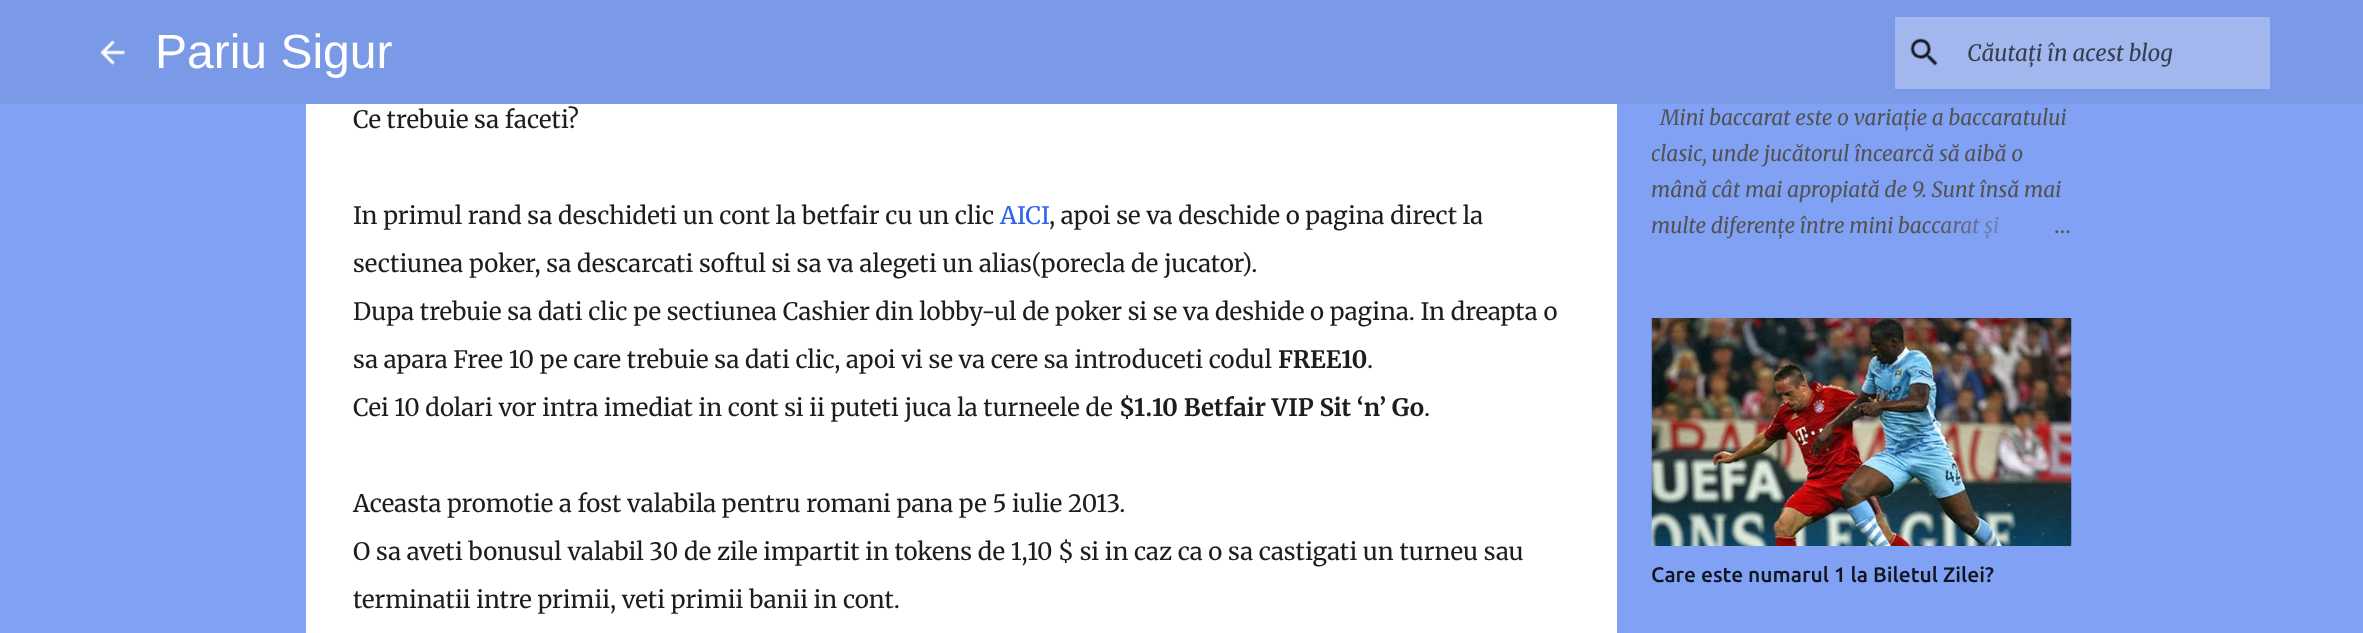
<?xml version="1.0" encoding="UTF-8"?>
<svg xmlns="http://www.w3.org/2000/svg" width="2363" height="633">
    <defs>
        <clipPath id="clip1"><rect x="1652" y="99" width="420" height="144"/></clipPath>
        <linearGradient id="g1" gradientUnits="userSpaceOnUse" x1="2072" y1="225" x2="1928" y2="225"><stop offset="0" stop-color="#81A2F4"/><stop offset="0.2" stop-color="#81A2F4"/><stop offset="1" stop-color="#81A2F4" stop-opacity="0"/></linearGradient>
    </defs>
    <rect width="100%" height="100%" fill="#81A2F4"/>
    <rect x="0" y="0" width="2363" height="104" fill="#7A99E7"/>
    <image x="100" y="40" width="25" height="25" href="img_01.png"/>
    <text x="155" y="68" font-family="Liberation Sans" font-size="48" fill="#FFFFFF">Pariu Sigur</text>
    <rect x="1895" y="17" width="375" height="72" fill="#A2B7EE"/>
    <image x="1910" y="38" width="28" height="28" href="img_02.png"/>
    <text x="1967" y="61" font-family="Merriweather" font-size="22.5" font-style="italic" fill="#373E51">Căutați în acest blog</text>
    <rect x="306" y="104" width="1311" height="529" fill="#FFFFFF"/>
    <text x="353" y="128" font-family="Merriweather" font-size="24" fill="#1D1D1D">Ce trebuie sa faceti?</text>
    <text x="353" y="224" font-family="Merriweather" font-size="24" fill="#1D1D1D">In primul rand sa deschideti un cont la betfair cu un clic</text>
    <text x="1000" y="224" font-family="Merriweather" font-size="24" fill="#2D63ED">AICI</text>
    <text x="1049" y="224" font-family="Merriweather" font-size="24" fill="#1D1D1D">, apoi se va deschide o pagina direct la</text>
    <text x="353" y="272" font-family="Merriweather" font-size="24" fill="#1D1D1D">sectiunea poker, sa descarcati softul si sa va alegeti un alias(porecla de jucator).</text>
    <text x="353" y="320" font-family="Merriweather" font-size="24" fill="#1D1D1D">Dupa trebuie sa dati clic pe sectiunea Cashier din lobby-ul de poker si se va deshide o pagina. In dreapta o</text>
    <text x="353" y="368" font-family="Merriweather" font-size="24" fill="#1D1D1D">sa apara Free 10 pe care trebuie sa dati clic, apoi vi se va cere sa introduceti codul</text>
    <text x="1278" y="368" font-family="Merriweather" font-size="24" font-weight="700" fill="#1D1D1D">FREE10</text>
    <text x="1367" y="368" font-family="Merriweather" font-size="24" fill="#1D1D1D">.</text>
    <text x="353" y="416" font-family="Merriweather" font-size="24" fill="#1D1D1D">Cei 10 dolari vor intra imediat in cont si ii puteti juca la turneele de</text>
    <text x="1119" y="416" font-family="Merriweather" font-size="24" font-weight="700" fill="#1D1D1D">$1.10 Betfair VIP Sit ‘n’ Go</text>
    <text x="1424" y="416" font-family="Merriweather" font-size="24" fill="#1D1D1D">.</text>
    <text x="353" y="512" font-family="Merriweather" font-size="24" fill="#1D1D1D">Aceasta promotie a fost valabila pentru romani pana pe 5 iulie 2013.</text>
    <text x="353" y="560" font-family="Merriweather" font-size="24" fill="#1D1D1D">O sa aveti bonusul valabil 30 de zile impartit in tokens de 1,10 $ si in caz ca o sa castigati un turneu sau</text>
    <text x="353" y="608" font-family="Merriweather" font-size="24" fill="#1D1D1D">terminatii intre primii, veti primii banii in cont.</text>
    <text x="1660" y="125" font-family="Merriweather" font-size="21" font-style="italic" fill="#525252">Mini baccarat este o variație a baccaratului</text>
    <g clip-path="url(#clip1)">
        <text x="1651" y="161" font-family="Merriweather" font-size="21" font-style="italic" fill="#525252">clasic, unde jucătorul încearcă să aibă o</text>
    </g>
    <text font-family="Merriweather" font-size="21" font-style="italic" fill="#525252">
        <tspan x="1651" y="197">mână cât mai apropiată de 9. Sunt însă mai</tspan>
        <tspan x="1651" y="233">multe diferențe între mini baccarat și</tspan>
    </text>
    <rect x="1932" y="216" width="67" height="23" fill="url(#g1)"/>
    <text x="2054" y="233" font-family="Merriweather" font-size="21" fill="#525252">…</text>
    <image x="1651" y="318" width="421" height="228" href="img_03.png"/>
    <text x="1651" y="582" font-family="Ubuntu" font-size="21" font-weight="500" fill="#111520">Care este numarul 1 la Biletul Zilei?</text>
</svg>
